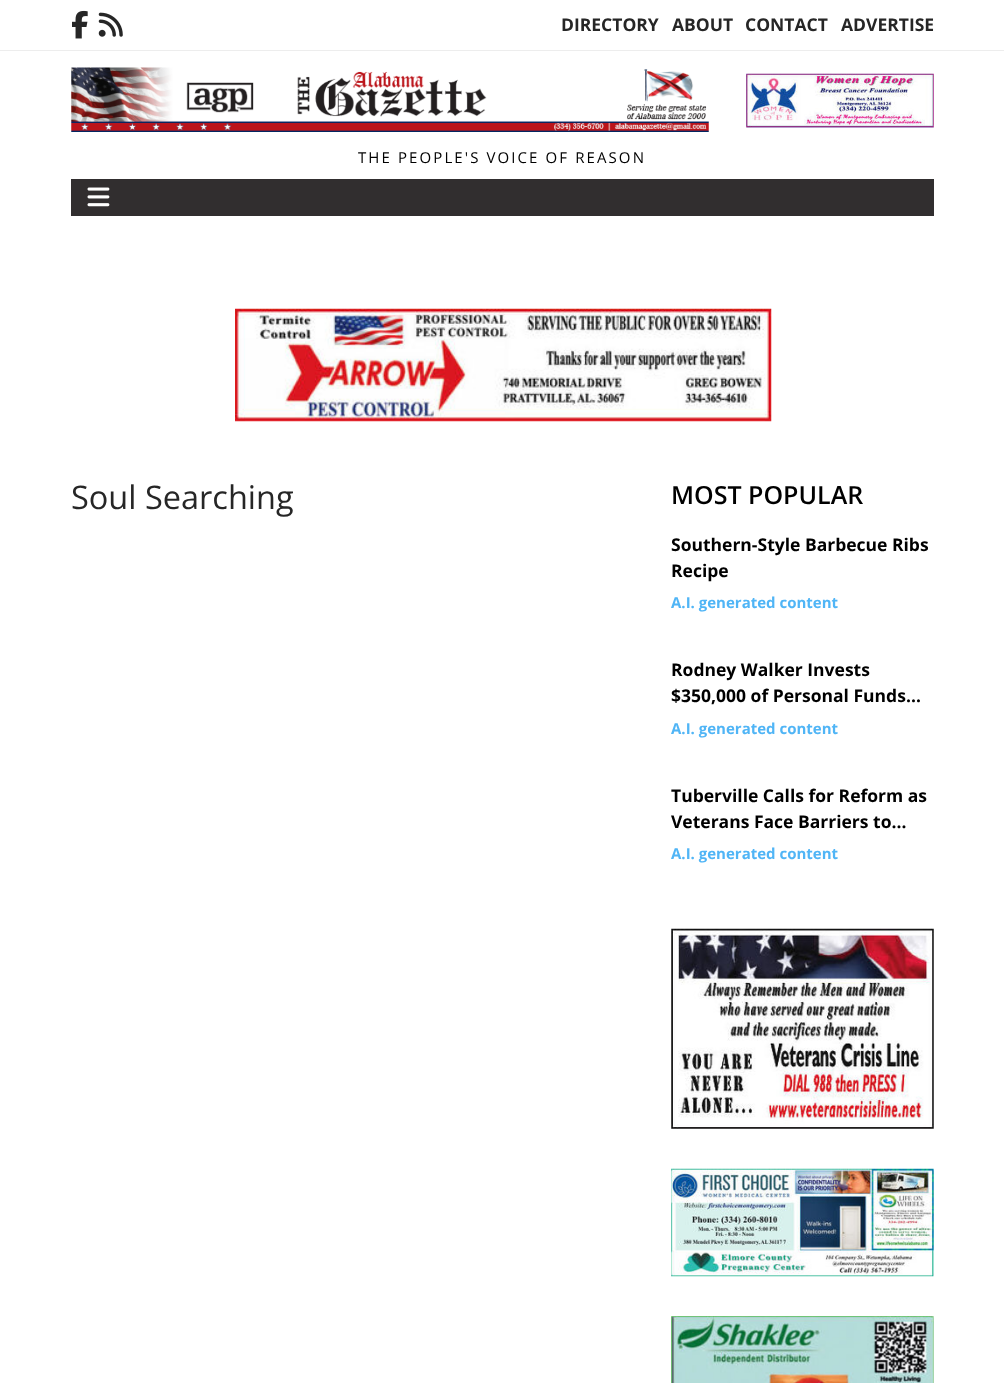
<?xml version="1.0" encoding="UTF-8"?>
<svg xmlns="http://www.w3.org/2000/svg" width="1004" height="1383">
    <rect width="100%" height="100%" fill="#FFFFFF"/>
    <rect x="0" y="50" width="1004" height="1" fill="#EDEDED"/>
    <image x="72" y="10" width="16" height="29" href="img_01.png"/>
    <image x="98" y="12" width="25" height="25" href="img_02.png"/>
    <text x="561" y="31" font-family="Open Sans" font-size="17.5" font-weight="700" fill="#262626">DIRECTORY</text>
    <text x="672" y="31" font-family="Open Sans" font-size="17.5" font-weight="700" fill="#262626">ABOUT</text>
    <text x="745" y="31" font-family="Open Sans" font-size="17.5" font-weight="700" fill="#262626">CONTACT</text>
    <text x="841" y="31" font-family="Open Sans" font-size="17.5" font-weight="700" fill="#262626">ADVERTISE</text>
    <image x="71" y="67" width="638" height="65" href="img_03.png"/>
    <image x="746" y="73" width="188" height="55" href="img_04.png"/>
    <text x="358" y="163" font-family="Open Sans" font-size="15" letter-spacing="2.1" fill="#000000">THE PEOPLE'S VOICE OF REASON</text>
    <rect x="71" y="179" width="863" height="37" fill="#312E2F"/>
    <image x="87" y="187" width="23" height="20" href="img_05.png"/>
    <image x="235" y="308" width="537" height="114" href="img_06.png"/>
    <text x="71" y="509" font-family="Open Sans" font-size="32.5" fill="#262626">Soul Searching</text>
    <text x="671" y="504" font-family="Open Sans" font-size="25" font-weight="600" fill="#000000">MOST POPULAR</text>
    <text font-family="Open Sans" font-size="17.5" font-weight="700" fill="#000000">
        <tspan x="671" y="551">Southern-Style Barbecue Ribs</tspan>
        <tspan x="671" y="577">Recipe</tspan>
    </text>
    <text x="671" y="608" font-family="Open Sans" font-size="15" font-weight="700" fill="#50B5F6">A.I. generated content</text>
    <text font-family="Open Sans" font-size="17.5" font-weight="700" fill="#000000">
        <tspan x="671" y="676">Rodney Walker Invests</tspan>
        <tspan x="671" y="702">$350,000 of Personal Funds…</tspan>
    </text>
    <text x="671" y="734" font-family="Open Sans" font-size="15" font-weight="700" fill="#50B5F6">A.I. generated content</text>
    <text font-family="Open Sans" font-size="17.5" font-weight="700" fill="#000000">
        <tspan x="671" y="802">Tuberville Calls for Reform as</tspan>
        <tspan x="671" y="828">Veterans Face Barriers to…</tspan>
    </text>
    <text x="671" y="859" font-family="Open Sans" font-size="15" font-weight="700" fill="#50B5F6">A.I. generated content</text>
    <image x="671" y="928" width="263" height="201" href="img_07.png"/>
    <image x="671" y="1168" width="263" height="109" href="img_08.png"/>
    <image x="671" y="1316" width="263" height="67" href="img_09.png"/>
</svg>
